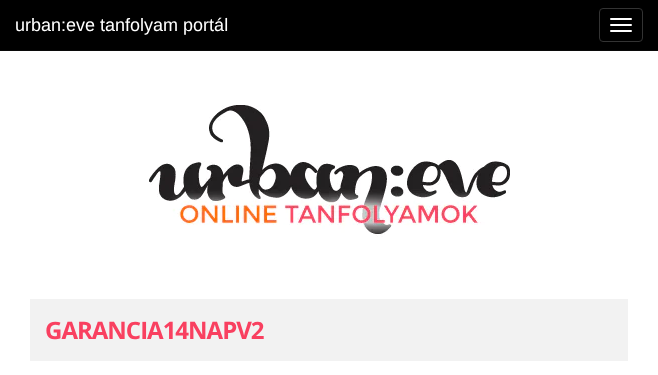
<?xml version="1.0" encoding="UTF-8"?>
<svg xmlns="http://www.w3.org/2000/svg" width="658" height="375">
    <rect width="100%" height="100%" fill="#FFFFFF"/>
    <rect x="0" y="0" width="658" height="50" fill="#000000"/>
    <rect x="0" y="50" width="658" height="1" fill="#090909"/>
    <text x="15" y="31" font-family="Liberation Sans" font-size="18" fill="#FFFFFF">urban:eve tanfolyam portál</text>
    <rect x="599.5" y="8.5" width="43" height="33" rx="3.5" fill="none" stroke="#333333"/>
    <rect x="610" y="18" width="22" height="2" rx="1" fill="#FFFFFF"/>
    <rect x="610" y="24" width="22" height="2" rx="1" fill="#FFFFFF"/>
    <rect x="610" y="30" width="22" height="2" rx="1" fill="#FFFFFF"/>
    <image x="149" y="105" width="361" height="132" href="img_01.png"/>
    <rect x="30" y="299" width="598" height="62" fill="#F2F2F2"/>
    <text x="45" y="339" font-family="Open Sans" font-size="24" font-weight="700" letter-spacing="-1" fill="#F94060">GARANCIA14NAPV2</text>
</svg>
